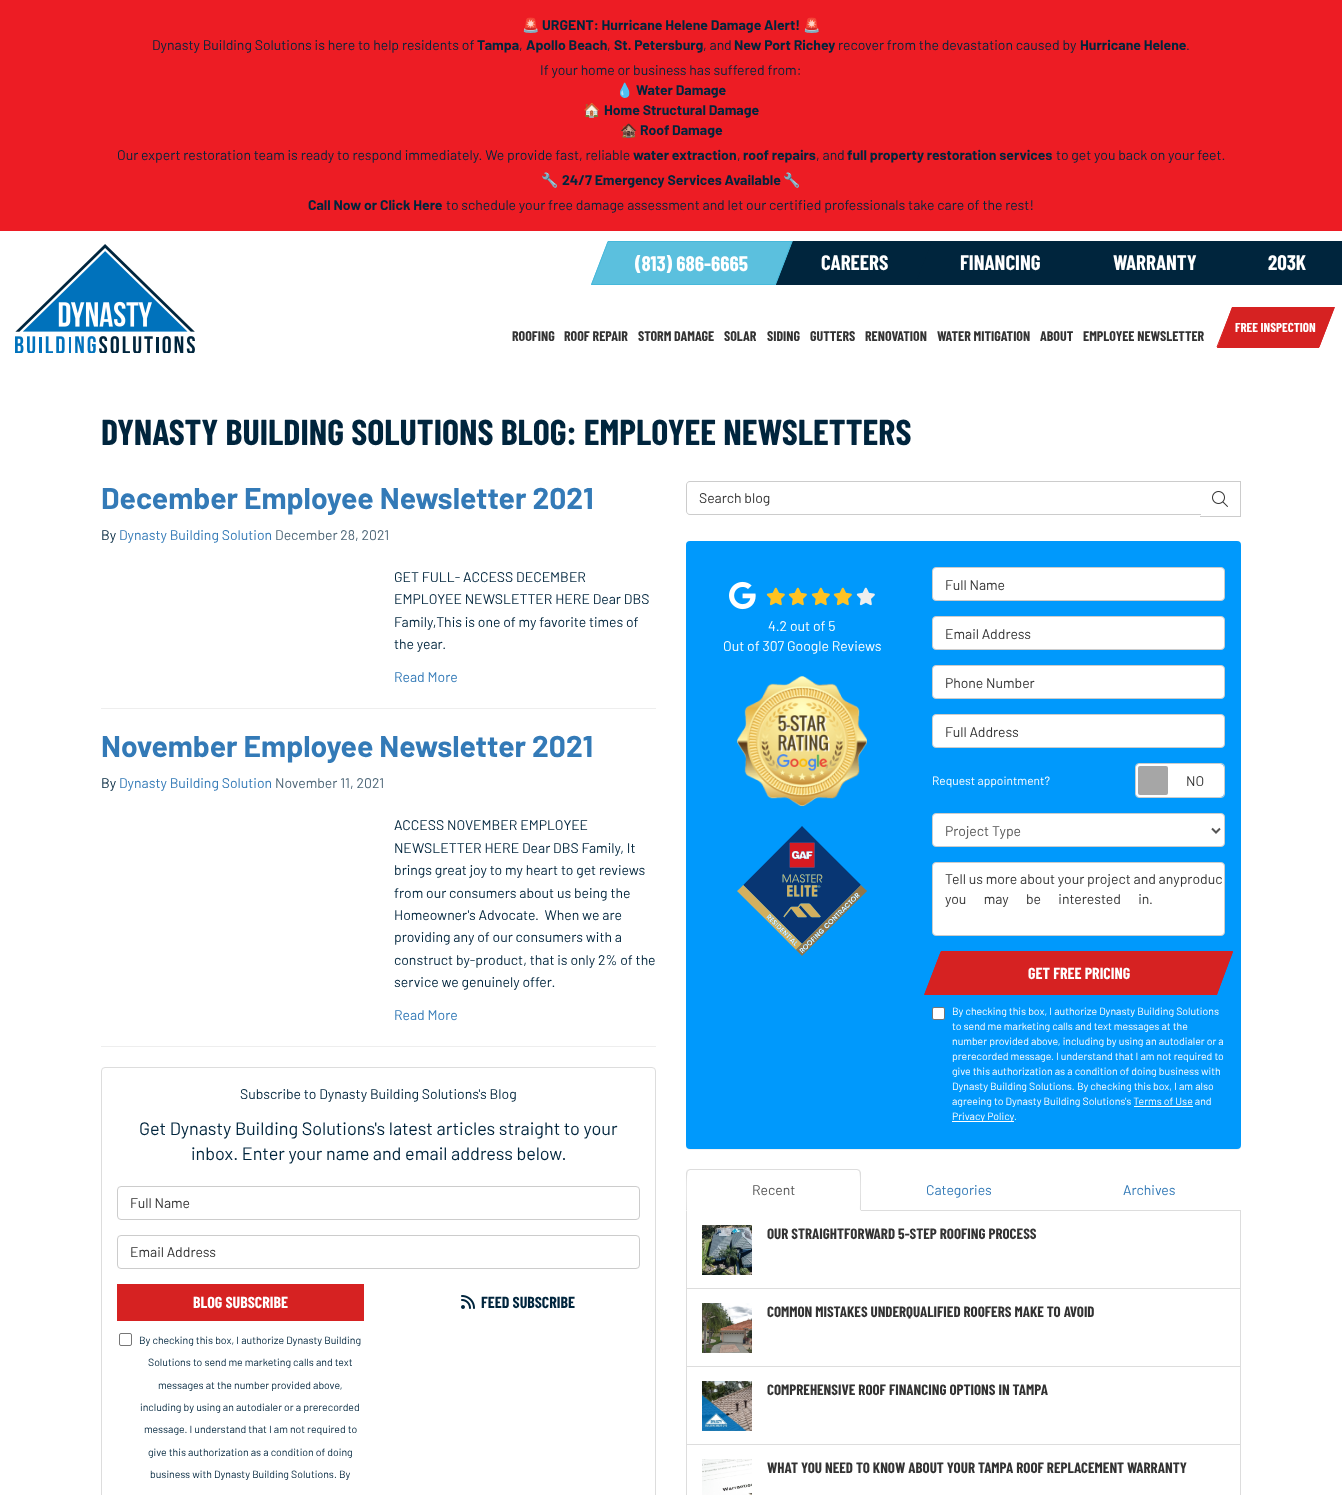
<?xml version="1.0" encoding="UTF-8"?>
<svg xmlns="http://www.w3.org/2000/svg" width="1342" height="1495">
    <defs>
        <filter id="blur1" x="-50%" y="-200%" width="200%" height="500%"><feGaussianBlur stdDeviation="0.5"/></filter>
    </defs>
    <rect width="100%" height="100%" fill="#FFFFFF"/>
    <rect x="0" y="0" width="1342" height="231" fill="#ED1C24"/>
    <text x="522" y="30" font-family="Noto Color Emoji" font-size="14" fill="#00253D">🚨</text>
    <text x="542" y="30" font-family="Barlow" font-size="14" font-weight="700" fill="#00253D">URGENT: Hurricane Helene Damage Alert!</text>
    <text x="803" y="30" font-family="Noto Color Emoji" font-size="14" fill="#00253D">🚨</text>
    <text x="152" y="50" font-family="Barlow" font-size="14" fill="#00253D">Dynasty Building Solutions is here to help residents of</text>
    <text x="477" y="50" font-family="Barlow" font-size="14" font-weight="700" fill="#00253D">Tampa</text>
    <text x="519" y="50" font-family="Barlow" font-size="14" fill="#00253D">,</text>
    <text x="526" y="50" font-family="Barlow" font-size="14" font-weight="700" fill="#00253D">Apollo Beach</text>
    <text x="607" y="50" font-family="Barlow" font-size="14" fill="#00253D">,</text>
    <text x="614" y="50" font-family="Barlow" font-size="14" font-weight="700" fill="#00253D">St. Petersburg</text>
    <text x="703" y="50" font-family="Barlow" font-size="14" fill="#00253D">, and</text>
    <text x="734" y="50" font-family="Barlow" font-size="14" font-weight="700" fill="#00253D">New Port Richey</text>
    <text x="838" y="50" font-family="Barlow" font-size="14" fill="#00253D">recover from the devastation caused by</text>
    <text x="1080" y="50" font-family="Barlow" font-size="14" font-weight="700" fill="#00253D">Hurricane Helene</text>
    <text x="1186" y="50" font-family="Barlow" font-size="14" fill="#00253D">.</text>
    <text x="540" y="75" font-family="Barlow" font-size="14" fill="#00253D">If your home or business has suffered from:</text>
    <text x="616" y="95" font-family="Noto Color Emoji" font-size="14" fill="#00253D">💧</text>
    <text x="636" y="95" font-family="Barlow" font-size="14" font-weight="700" fill="#00253D">Water Damage</text>
    <text x="583" y="115" font-family="Noto Color Emoji" font-size="14" fill="#00253D">🏠</text>
    <text x="604" y="115" font-family="Barlow" font-size="14" font-weight="700" fill="#00253D">Home Structural Damage</text>
    <text x="620" y="135" font-family="Noto Color Emoji" font-size="14" fill="#00253D">🏚️</text>
    <text x="640" y="135" font-family="Barlow" font-size="14" font-weight="700" fill="#00253D">Roof Damage</text>
    <text x="117" y="160" font-family="Barlow" font-size="14" fill="#00253D">Our expert restoration team is ready to respond immediately. We provide fast, reliable</text>
    <text x="633" y="160" font-family="Barlow" font-size="14" font-weight="700" fill="#00253D">water extraction</text>
    <text x="737" y="160" font-family="Barlow" font-size="14" fill="#00253D">,</text>
    <text x="743" y="160" font-family="Barlow" font-size="14" font-weight="700" fill="#00253D">roof repairs</text>
    <text x="816" y="160" font-family="Barlow" font-size="14" fill="#00253D">, and</text>
    <text x="847" y="160" font-family="Barlow" font-size="14" font-weight="700" fill="#00253D">full property restoration services</text>
    <text x="1056" y="160" font-family="Barlow" font-size="14" fill="#00253D">to get you back on your feet.</text>
    <text x="541" y="185" font-family="Noto Color Emoji" font-size="14" fill="#00253D">🔧</text>
    <text x="562" y="185" font-family="Barlow" font-size="14" font-weight="700" fill="#00253D">24/7 Emergency Services Available</text>
    <text x="783" y="185" font-family="Noto Color Emoji" font-size="14" fill="#00253D">🔧</text>
    <text x="308" y="210" font-family="Barlow" font-size="14" font-weight="700" fill="#00253D">Call Now or Click Here</text>
    <text x="446" y="210" font-family="Barlow" font-size="14" fill="#00253D">to schedule your free damage assessment and let our certified professionals take care of the rest!</text>
    <image x="15" y="244" width="180" height="109" href="img_01.png"/>
    <path d="M 643 241 H 1342 V 285 H 599 C 599 260.5 618.5 241 643 241 Z" fill="#00253D"/>
    <path d="M 608 241 H 793 L 776 285 H 591 Z" fill="#5BC0DE"/>
    <path d="M 608 241.5 H 792 L 775.5 284.5 H 591.5 Z" fill="none" stroke="#46B8DA"/>
    <text x="635" y="271" font-family="Barlow Condensed" font-size="21" font-weight="700" fill="#FFFFFF">(813) 686-6665</text>
    <path d="M 793 241 H 932 L 915 285 H 776 Z" fill="#00253D"/>
    <text x="821" y="270" font-family="Barlow Condensed" font-size="21" font-weight="700" fill="#FFFFFF">CAREERS</text>
    <text x="960" y="270" font-family="Barlow Condensed" font-size="21" font-weight="700" fill="#FFFFFF">FINANCING</text>
    <text x="1113" y="270" font-family="Barlow Condensed" font-size="21" font-weight="700" fill="#FFFFFF">WARRANTY</text>
    <text x="1268" y="270" font-family="Barlow Condensed" font-size="21" font-weight="700" fill="#FFFFFF">203K</text>
    <path d="M 1232 307 H 1335 L 1319 348 H 1217 Z" fill="#D62222"/>
    <path d="M 1232.5 307.5 H 1334 L 1319 347 H 1217 Z" fill="none" stroke="#D62222"/>
    <text x="1235" y="332" font-family="Barlow Condensed" font-size="13" font-weight="700" fill="#FFFFFF">FREE INSPECTION</text>
    <text x="512" y="341" font-family="Barlow Condensed" font-size="14" font-weight="700" fill="#333333">ROOFING</text>
    <text x="564" y="341" font-family="Barlow Condensed" font-size="14" font-weight="700" fill="#333333">ROOF REPAIR</text>
    <text x="638" y="341" font-family="Barlow Condensed" font-size="14" font-weight="700" fill="#333333">STORM DAMAGE</text>
    <text x="724" y="341" font-family="Barlow Condensed" font-size="14" font-weight="700" fill="#333333">SOLAR</text>
    <text x="767" y="341" font-family="Barlow Condensed" font-size="14" font-weight="700" fill="#333333">SIDING</text>
    <text x="810" y="341" font-family="Barlow Condensed" font-size="14" font-weight="700" fill="#333333">GUTTERS</text>
    <text x="865" y="341" font-family="Barlow Condensed" font-size="14" font-weight="700" fill="#333333">RENOVATION</text>
    <text x="937" y="341" font-family="Barlow Condensed" font-size="14" font-weight="700" fill="#333333">WATER MITIGATION</text>
    <text x="1040" y="341" font-family="Barlow Condensed" font-size="14" font-weight="700" fill="#333333">ABOUT</text>
    <text x="1083" y="341" font-family="Barlow Condensed" font-size="14" font-weight="700" fill="#333333">EMPLOYEE NEWSLETTER</text>
    <text x="101" y="445" font-family="Barlow Condensed" font-size="36" font-weight="700" fill="#00253D">DYNASTY BUILDING SOLUTIONS BLOG: EMPLOYEE NEWSLETTERS</text>
    <text x="101" y="509" font-family="Barlow" font-size="30" font-weight="700" fill="#337AB7">December Employee Newsletter 2021</text>
    <text x="101" y="540" font-family="Barlow" font-size="14" fill="#00253D">By</text>
    <text x="119" y="540" font-family="Barlow" font-size="14" fill="#337AB7">Dynasty Building Solution</text>
    <text x="275" y="540" font-family="Barlow" font-size="14" fill="#4D6677">December 28, 2021</text>
    <text font-family="Barlow" font-size="14" fill="#00253D">
        <tspan x="394" y="582">GET FULL- ACCESS DECEMBER</tspan>
        <tspan x="394" y="604">EMPLOYEE NEWSLETTER HERE Dear DBS</tspan>
        <tspan x="394" y="627">Family,This is one of my favorite times of</tspan>
        <tspan x="394" y="649">the year.</tspan>
    </text>
    <text x="394" y="682" font-family="Barlow" font-size="14" fill="#337AB7">Read More</text>
    <rect x="101" y="708" width="555" height="1" fill="#EEEEEE"/>
    <text x="101" y="757" font-family="Barlow" font-size="30" font-weight="700" fill="#337AB7">November Employee Newsletter 2021</text>
    <text x="101" y="788" font-family="Barlow" font-size="14" fill="#00253D">By</text>
    <text x="119" y="788" font-family="Barlow" font-size="14" fill="#337AB7">Dynasty Building Solution</text>
    <text x="275" y="788" font-family="Barlow" font-size="14" fill="#4D6677">November 11, 2021</text>
    <text font-family="Barlow" font-size="14" fill="#00253D" xml:space="preserve"><tspan x="394" y="830">ACCESS NOVEMBER EMPLOYEE</tspan><tspan x="394" y="853">NEWSLETTER HERE Dear DBS Family, It</tspan><tspan x="394" y="875">brings great joy to my heart to get reviews</tspan><tspan x="394" y="898">from our consumers about us being the</tspan><tspan x="394" y="920">Homeowner's Advocate.  When we are</tspan><tspan x="394" y="942">providing any of our consumers with a</tspan><tspan x="394" y="965">construct by-product, that is only 2% of the</tspan><tspan x="394" y="987">service we genuinely offer.</tspan></text>
    <text x="394" y="1020" font-family="Barlow" font-size="14" fill="#337AB7">Read More</text>
    <rect x="101" y="1046" width="555" height="1" fill="#EEEEEE"/>
    <rect x="101.5" y="1067.5" width="554" height="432" rx="3.5" fill="none" stroke="#DDDDDD"/>
    <text x="240" y="1099" font-family="Barlow" font-size="14" fill="#00253D">Subscribe to Dynasty Building Solutions's Blog</text>
    <text x="139" y="1135" font-family="Barlow" font-size="18" fill="#00253D">Get Dynasty Building Solutions's latest articles straight to your</text>
    <text x="191" y="1160" font-family="Barlow" font-size="18" fill="#00253D">inbox. Enter your name and email address below.</text>
    <rect x="117.5" y="1186.5" width="522" height="33" rx="3.5" fill="none" stroke="#CCCCCC"/>
    <text x="130" y="1208" font-family="Barlow" font-size="14" fill="#333333">Full Name</text>
    <rect x="117.5" y="1235.5" width="522" height="33" rx="3.5" fill="none" stroke="#CCCCCC"/>
    <text x="130" y="1257" font-family="Barlow" font-size="14" fill="#333333">Email Address</text>
    <rect x="117" y="1284" width="247" height="37" fill="#D62222"/>
    <text x="193" y="1308" font-family="Barlow Condensed" font-size="16" font-weight="700" fill="#FFFFFF">BLOG SUBSCRIBE</text>
    <rect x="119.5" y="1333.5" width="12" height="12" rx="1.5" fill="none" stroke="#767676"/>
    <text x="139" y="1344" font-family="Barlow" font-size="10.5" fill="#00253D">By checking this box, I authorize Dynasty Building</text>
    <text x="148" y="1366" font-family="Barlow" font-size="10.5" fill="#00253D">Solutions to send me marketing calls and text</text>
    <text x="158" y="1389" font-family="Barlow" font-size="10.5" fill="#00253D">messages at the number provided above,</text>
    <text x="140" y="1411" font-family="Barlow" font-size="10.5" fill="#00253D">including by using an autodialer or a prerecorded</text>
    <text x="144" y="1433" font-family="Barlow" font-size="10.5" fill="#00253D">message. I understand that I am not required to</text>
    <text x="148" y="1456" font-family="Barlow" font-size="10.5" fill="#00253D">give this authorization as a condition of doing</text>
    <text x="150" y="1478" font-family="Barlow" font-size="10.5" fill="#00253D">business with Dynasty Building Solutions. By</text>
    <image x="461" y="1295" width="14" height="14" href="img_02.png"/>
    <text x="481" y="1308" font-family="Barlow Condensed" font-size="16" font-weight="700" fill="#00253D">FEED SUBSCRIBE</text>
    <rect x="1200" y="481" width="41" height="1" fill="#CCCCCC"/>
    <path d="M 690 481 H 1201 V 515 H 690 C 688 515 686 513 686 511 V 485 C 686 483 688 481 690 481 Z" fill="#FFFFFF"/>
    <path d="M 690 481 H 1201 V 515 H 690 C 688 515 686 513 686 511 V 485 C 686 483 688 481 690 481 Z M 690 482 H 1201 V 514 H 690 C 688 514 687 513 687 511 V 485 C 687 483 688 482 690 482 Z" fill="#CCCCCC" fill-rule="evenodd"/>
    <text x="699" y="503" font-family="Barlow" font-size="14" fill="#333333">Search blog</text>
    <rect x="1240" y="481" width="1" height="36" fill="#CCCCCC"/>
    <rect x="1200" y="516" width="41" height="1" fill="#CCCCCC"/>
    <image x="1212" y="491" width="16" height="16" href="img_03.png"/>
    <rect x="686" y="542" width="555" height="608" rx="4" fill="#000000" fill-opacity="0.05" filter="url(#blur1)"/>
    <rect x="686" y="541" width="555" height="608" rx="4" fill="#0099FC"/>
    <image x="729" y="581" width="27" height="29" href="img_04.png"/>
    <image x="766" y="587" width="19" height="19" href="img_05.png"/>
    <image x="788" y="587" width="19" height="19" href="img_05.png"/>
    <image x="811" y="587" width="19" height="19" href="img_05.png"/>
    <image x="833" y="587" width="19" height="19" href="img_05.png"/>
    <image x="856" y="587" width="19" height="19" href="img_06.png"/>
    <text x="768" y="631" font-family="Barlow" font-size="14" fill="#FFFFFF">4.2 out of 5</text>
    <text x="723" y="651" font-family="Barlow" font-size="14" fill="#FFFFFF">Out of 307 Google Reviews</text>
    <image x="737" y="676" width="130" height="130" href="img_07.png"/>
    <image x="737" y="826" width="130" height="130" href="img_08.png"/>
    <rect x="932.5" y="567.5" width="292" height="33" rx="3.5" fill="#FFFFFF" stroke="#CCCCCC"/>
    <text x="945" y="590" font-family="Barlow" font-size="14" fill="#333333">Full Name</text>
    <rect x="932.5" y="616.5" width="292" height="33" rx="3.5" fill="#FFFFFF" stroke="#CCCCCC"/>
    <text x="945" y="639" font-family="Barlow" font-size="14" fill="#333333">Email Address</text>
    <rect x="932.5" y="665.5" width="292" height="33" rx="3.5" fill="#FFFFFF" stroke="#CCCCCC"/>
    <text x="945" y="688" font-family="Barlow" font-size="14" fill="#333333">Phone Number</text>
    <rect x="932.5" y="714.5" width="292" height="33" rx="3.5" fill="#FFFFFF" stroke="#CCCCCC"/>
    <text x="945" y="737" font-family="Barlow" font-size="14" fill="#333333">Full Address</text>
    <text x="932" y="785" font-family="Barlow" font-size="12" fill="#FFFFFF">Request appointment?</text>
    <rect x="1135.5" y="763.5" width="89" height="34" rx="3.5" fill="none" stroke="#CCCCCC"/>
    <rect x="1136" y="764" width="88" height="33" rx="4" fill="#FFFFFF"/>
    <rect x="1137" y="765" width="32" height="31" rx="3" fill="#A6A6A6" stroke="#FFFFFF" stroke-width="2"/>
    <text x="1186" y="786" font-family="Barlow" font-size="14" fill="#333333">NO</text>
    <rect x="932.5" y="813.5" width="292" height="33" rx="3.5" fill="#FFFFFF" stroke="#CCCCCC"/>
    <path d="M 1212 828.5 L 1216 832.5 L 1220 828.5" fill="none" stroke="#555555" stroke-width="2"/>
    <text x="945" y="836" font-family="Barlow" font-size="14" fill="#555555">Project Type</text>
    <rect x="932.5" y="862.5" width="292" height="73" rx="3.5" fill="#FFFFFF" stroke="#CCCCCC"/>
    <text font-family="Barlow" font-size="14" fill="#333333">
        <tspan x="945" y="884">Tell us more about your project and anyproduc</tspan>
        <tspan x="945" y="904" word-spacing="14.5">you may be interested in.</tspan>
    </text>
    <path d="M 941 951 H 1233 L 1217 995 H 924 Z" fill="#D62222"/>
    <path d="M 941 952 H 1232.5 L 1216.5 994 H 925 Z" fill="none" stroke="#D62222"/>
    <text x="1028" y="979" font-family="Barlow Condensed" font-size="16" font-weight="700" fill="#FFFFFF">GET FREE PRICING</text>
    <rect x="932.5" y="1007.5" width="12" height="12" rx="1.5" fill="#FFFFFF" stroke="#767676"/>
    <text font-family="Barlow" font-size="10.5" fill="#FFFFFF">
        <tspan x="952" y="1015">By checking this box, I authorize Dynasty Building Solutions</tspan>
        <tspan x="952" y="1030">to send me marketing calls and text messages at the</tspan>
        <tspan x="952" y="1045">number provided above, including by using an autodialer or a</tspan>
        <tspan x="952" y="1060">prerecorded message. I understand that I am not required to</tspan>
        <tspan x="952" y="1075">give this authorization as a condition of doing business with</tspan>
        <tspan x="952" y="1090">Dynasty Building Solutions. By checking this box, I am also</tspan>
        <tspan x="952" y="1105">agreeing to Dynasty Building Solutions's Terms of Use and</tspan>
    </text>
    <rect x="1134" y="1106" width="59" height="1" fill="#FFFFFF"/>
    <rect x="952" y="1121" width="62" height="1" fill="#FFFFFF"/>
    <text x="952" y="1120" font-family="Barlow" font-size="10.5" fill="#FFFFFF">Privacy Policy</text>
    <text x="1014" y="1120" font-family="Barlow" font-size="10.5" fill="#FFFFFF">.</text>
    <rect x="686.5" y="1210.5" width="554" height="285" fill="none" stroke="#DDDDDD"/>
    <path d="M 690 1169 H 857 C 859 1169 861 1171 861 1173 V 1211 H 686 V 1173 C 686 1171 688 1169 690 1169 Z" fill="#FFFFFF"/>
    <path d="M 690 1169 L 687 1170 L 688 1171 L 690 1170 H 857 L 859 1171 L 860 1170 L 857 1169 Z" fill="#DDDDDD"/>
    <path d="M 861 1211 V 1173 C 861 1172 860 1171 860 1170 L 859 1171 C 861 1173 860 1205 860 1210 Z" fill="#DDDDDD"/>
    <path d="M 861 1211 L 860 1210 H 687 L 686 1211 Z" fill="#FFFFFF"/>
    <path d="M 686 1211 L 687 1210 C 687 1205 686 1173 688 1171 L 687 1170 L 686 1173 Z" fill="#DDDDDD"/>
    <text x="752" y="1195" font-family="Barlow" font-size="14" fill="#555555">Recent</text>
    <text x="926" y="1195" font-family="Barlow" font-size="14" fill="#337AB7">Categories</text>
    <text x="1123" y="1195" font-family="Barlow" font-size="14" fill="#337AB7">Archives</text>
    <image x="702" y="1225" width="50" height="50" href="img_09.png"/>
    <text x="767" y="1239" font-family="Barlow Condensed" font-size="15" font-weight="700" fill="#333333">OUR STRAIGHTFORWARD 5-STEP ROOFING PROCESS</text>
    <rect x="687" y="1288" width="553" height="1" fill="#DDDDDD"/>
    <image x="702" y="1303" width="50" height="50" href="img_10.png"/>
    <text x="767" y="1317" font-family="Barlow Condensed" font-size="15" font-weight="700" fill="#333333">COMMON MISTAKES UNDERQUALIFIED ROOFERS MAKE TO AVOID</text>
    <rect x="687" y="1366" width="553" height="1" fill="#DDDDDD"/>
    <image x="702" y="1381" width="50" height="50" href="img_11.png"/>
    <text x="767" y="1395" font-family="Barlow Condensed" font-size="15" font-weight="700" fill="#333333">COMPREHENSIVE ROOF FINANCING OPTIONS IN TAMPA</text>
    <rect x="687" y="1444" width="553" height="1" fill="#DDDDDD"/>
    <image x="702" y="1459" width="50" height="36" href="img_12.png"/>
    <text x="767" y="1473" font-family="Barlow Condensed" font-size="15" font-weight="700" fill="#333333">WHAT YOU NEED TO KNOW ABOUT YOUR TAMPA ROOF REPLACEMENT WARRANTY</text>
</svg>
